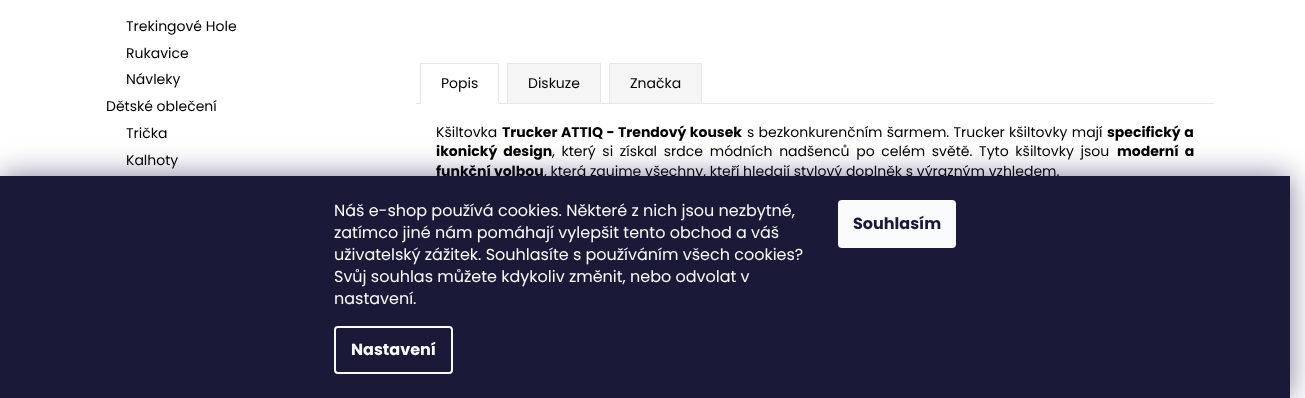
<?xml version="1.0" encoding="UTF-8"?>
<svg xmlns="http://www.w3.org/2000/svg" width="1305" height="398">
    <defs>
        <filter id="blur1" x="-50%" y="-200%" width="200%" height="500%"><feGaussianBlur stdDeviation="15"/></filter>
    </defs>
    <rect width="100%" height="100%" fill="#FFFFFF"/>
    <text font-family="Poppins" font-size="14" fill="#000000">
        <tspan x="126" y="31">Trekingové Hole</tspan>
        <tspan x="126" y="58">Rukavice</tspan>
        <tspan x="126" y="84">Návleky</tspan>
    </text>
    <text x="106" y="111" font-family="Poppins" font-size="14" fill="#000000">Dětské oblečení</text>
    <text font-family="Poppins" font-size="14" fill="#000000">
        <tspan x="126" y="138">Trička</tspan>
        <tspan x="126" y="165">Kalhoty</tspan>
    </text>
    <rect x="416" y="103" width="798" height="1" fill="#E7E7E7"/>
    <rect x="420" y="63" width="79" height="1" fill="#E7E7E7"/>
    <rect x="498" y="63" width="1" height="41" fill="#E7E7E7"/>
    <rect x="420" y="103" width="79" height="1" fill="#FFFFFF"/>
    <rect x="420" y="63" width="1" height="41" fill="#E7E7E7"/>
    <text x="441" y="88" font-family="Poppins" font-size="14" fill="#000000">Popis</text>
    <rect x="507.5" y="63.5" width="93" height="40" fill="#F5F5F5" stroke="#E7E7E7"/>
    <text x="528" y="88" font-family="Poppins" font-size="14" fill="#000000">Diskuze</text>
    <rect x="609.5" y="63.5" width="92" height="40" fill="#F5F5F5" stroke="#E7E7E7"/>
    <text x="630" y="88" font-family="Poppins" font-size="14" fill="#000000">Značka</text>
    <text x="436" y="137" font-family="Poppins" font-size="14" fill="#000000">Kšiltovka</text>
    <text x="502" y="137" word-spacing="0.5" font-family="Poppins" font-size="14" font-weight="700" fill="#000000">Trucker ATTIQ - Trendový kousek</text>
    <text x="747" y="137" word-spacing="0.5" font-family="Poppins" font-size="14" fill="#000000">s bezkonkurenčním šarmem. Trucker kšiltovky mají</text>
    <text x="1107" y="137" word-spacing="0.5" font-family="Poppins" font-size="14" font-weight="700" fill="#000000">specifický a</text>
    <text x="436" y="156" word-spacing="3" font-family="Poppins" font-size="14" font-weight="700" fill="#000000">ikonický design</text>
    <text x="552" y="156" word-spacing="3" font-family="Poppins" font-size="14" fill="#000000">, který si získal srdce módních nadšenců po celém světě. Tyto kšiltovky jsou</text>
    <text x="1117" y="156" word-spacing="3" font-family="Poppins" font-size="14" font-weight="700" fill="#000000">moderní a</text>
    <text x="436" y="176" font-family="Poppins" font-size="14" font-weight="700" fill="#000000">funkční volbou</text>
    <text x="544" y="176" font-family="Poppins" font-size="14" fill="#000000">, která zaujme všechny, kteří hledají stylový doplněk s výrazným vzhledem.</text>
    <rect x="0" y="176" width="1290" height="222" fill="#1B1939" fill-opacity="0.5" filter="url(#blur1)"/>
    <rect x="0" y="176" width="1290" height="222" fill="#1A1937"/>
    <text font-family="Poppins" font-size="16" fill="#F8FAFB">
        <tspan x="334" y="216">Náš e-shop používá cookies. Některé z nich jsou nezbytné,</tspan>
        <tspan x="334" y="238">zatímco jiné nám pomáhají vylepšit tento obchod a váš</tspan>
        <tspan x="334" y="260">uživatelský zážitek. Souhlasíte s používáním všech cookies?</tspan>
        <tspan x="334" y="282">Svůj souhlas můžete kdykoliv změnit, nebo odvolat v</tspan>
        <tspan x="334" y="304">nastavení.</tspan>
    </text>
    <rect x="335" y="327" width="117" height="46" rx="3" fill="none" stroke="#F8FAFB" stroke-width="2"/>
    <text x="351" y="355" font-family="Poppins" font-size="16" font-weight="700" fill="#F8FAFB">Nastavení</text>
    <rect x="838" y="200" width="118" height="48" rx="4" fill="#F8FAFB"/>
    <text x="853" y="229" font-family="Poppins" font-size="16" font-weight="700" fill="#1A1937">Souhlasím</text>
</svg>
